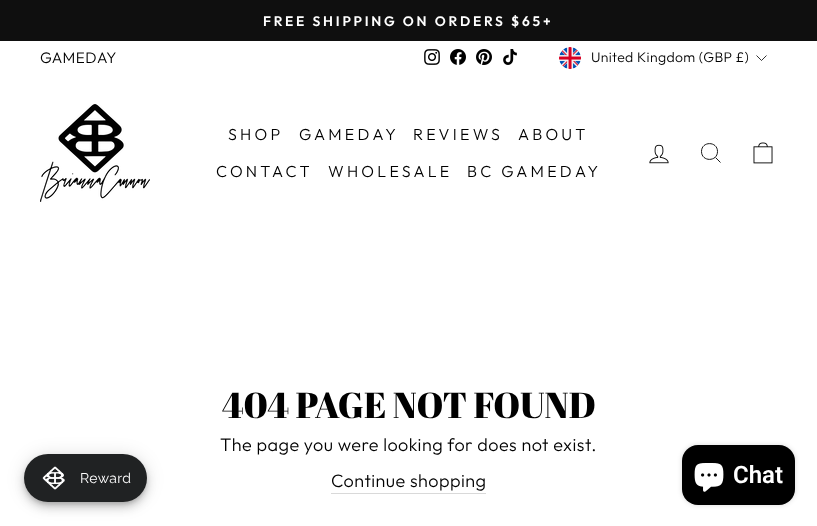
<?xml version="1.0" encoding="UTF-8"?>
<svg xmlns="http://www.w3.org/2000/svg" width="817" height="526">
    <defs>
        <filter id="blur1" x="-50%" y="-200%" width="200%" height="500%"><feGaussianBlur stdDeviation="2.5"/></filter>
        <filter id="blur2" x="-50%" y="-200%" width="200%" height="500%"><feGaussianBlur stdDeviation="9"/></filter>
        <filter id="blur3" x="-50%" y="-200%" width="200%" height="500%"><feGaussianBlur stdDeviation="5"/></filter>
    </defs>
    <rect width="100%" height="100%" fill="#FFFFFF"/>
    <rect x="0" y="0" width="817" height="41" fill="#0F0F0F"/>
    <text x="263" y="26" font-family="Outfit" font-size="13.75" font-weight="600" letter-spacing="2.75" fill="#FFFFFF">FREE SHIPPING ON ORDERS $65+</text>
    <text x="40" y="63" font-family="Outfit" font-size="15.25" font-weight="300" letter-spacing="0.45" fill="#000000">GAMEDAY</text>
    <image x="424" y="49" width="16" height="16" href="img_01.png"/>
    <image x="450" y="49" width="16" height="16" href="img_02.png"/>
    <image x="476" y="49" width="16" height="16" href="img_03.png"/>
    <image x="503" y="49" width="14" height="16" href="img_04.png"/>
    <image x="559" y="47" width="22" height="22" href="img_05.png"/>
    <text x="591" y="62" font-family="Outfit" font-size="14" font-weight="300" letter-spacing="0.35" fill="#000000">United Kingdom (GBP £)</text>
    <path d="M 756.5 55.5 L 761.5 60.5 L 766.5 55.5" fill="none" stroke="#000000" stroke-width="0.8"/>
    <image x="40" y="104" width="110" height="98" href="img_06.png"/>
    <text x="228" y="140" font-family="Outfit" font-size="16" font-weight="300" letter-spacing="3.25" fill="#000000">SHOP</text>
    <text x="299" y="140" font-family="Outfit" font-size="16" font-weight="300" letter-spacing="3.25" fill="#000000">GAMEDAY</text>
    <text x="413" y="140" font-family="Outfit" font-size="16" font-weight="300" letter-spacing="3.25" fill="#000000">REVIEWS</text>
    <text x="518" y="140" font-family="Outfit" font-size="16" font-weight="300" letter-spacing="3.25" fill="#000000">ABOUT</text>
    <text x="216" y="177" font-family="Outfit" font-size="16" font-weight="300" letter-spacing="3.25" fill="#000000">CONTACT</text>
    <text x="328" y="177" font-family="Outfit" font-size="16" font-weight="300" letter-spacing="3.25" fill="#000000">WHOLESALE</text>
    <text x="467" y="177" font-family="Outfit" font-size="16" font-weight="300" letter-spacing="3.25" fill="#000000">BC GAMEDAY</text>
    <image x="649" y="144" width="20" height="20" href="img_07.png"/>
    <path d="M 717.5 151.5 C 717.5 162 701.5 162 701.5 151.5 C 701.5 141 717.5 141 717.5 151.5 Z M 720.5 162.5 L 715.5 157.5" fill="none" stroke="#000000" stroke-width="0.9"/>
    <image x="753" y="142" width="20" height="22" href="img_08.png"/>
    <text x="222" y="418" font-family="Abril Fatface" font-size="36" fill="#000000">404 PAGE NOT FOUND</text>
    <text x="220" y="451" font-family="Outfit" font-size="18" font-weight="300" letter-spacing="0.45" fill="#000000">The page you were looking for does not exist.</text>
    <rect x="331" y="493" width="155" height="1" fill="#D9D9D9"/>
    <text x="331" y="487" font-family="Outfit" font-size="18" font-weight="300" letter-spacing="0.45" fill="#000000">Continue shopping</text>
    <rect x="682" y="445" width="113" height="60" rx="16" fill="#000000" fill-opacity="0.15" filter="url(#blur1)"/>
    <rect x="682" y="445" width="113" height="60" rx="16" fill="#000000"/>
    <image x="694" y="463" width="30" height="29" href="img_09.png"/>
    <text x="733" y="483" font-family="Roboto" font-size="24" font-weight="600" fill="#FFFFFF">Chat</text>
    <rect x="24" y="455" width="123" height="48" rx="24" fill="#000000" fill-opacity="0.12" filter="url(#blur2)"/>
    <rect x="24" y="460" width="123" height="48" rx="24" fill="#000000" fill-opacity="0.14" filter="url(#blur3)"/>
    <rect x="25" y="458" width="121" height="46" rx="23" fill="#000000" fill-opacity="0.2" filter="url(#blur1)"/>
    <rect x="24" y="454" width="123" height="48" rx="24" fill="#202223"/>
    <image x="42" y="466" width="23" height="24" href="img_10.png"/>
    <text x="80" y="483" font-family="Raleway" font-size="14" font-weight="100" letter-spacing="0.35" fill="#FFFFFF">Reward</text>
</svg>
